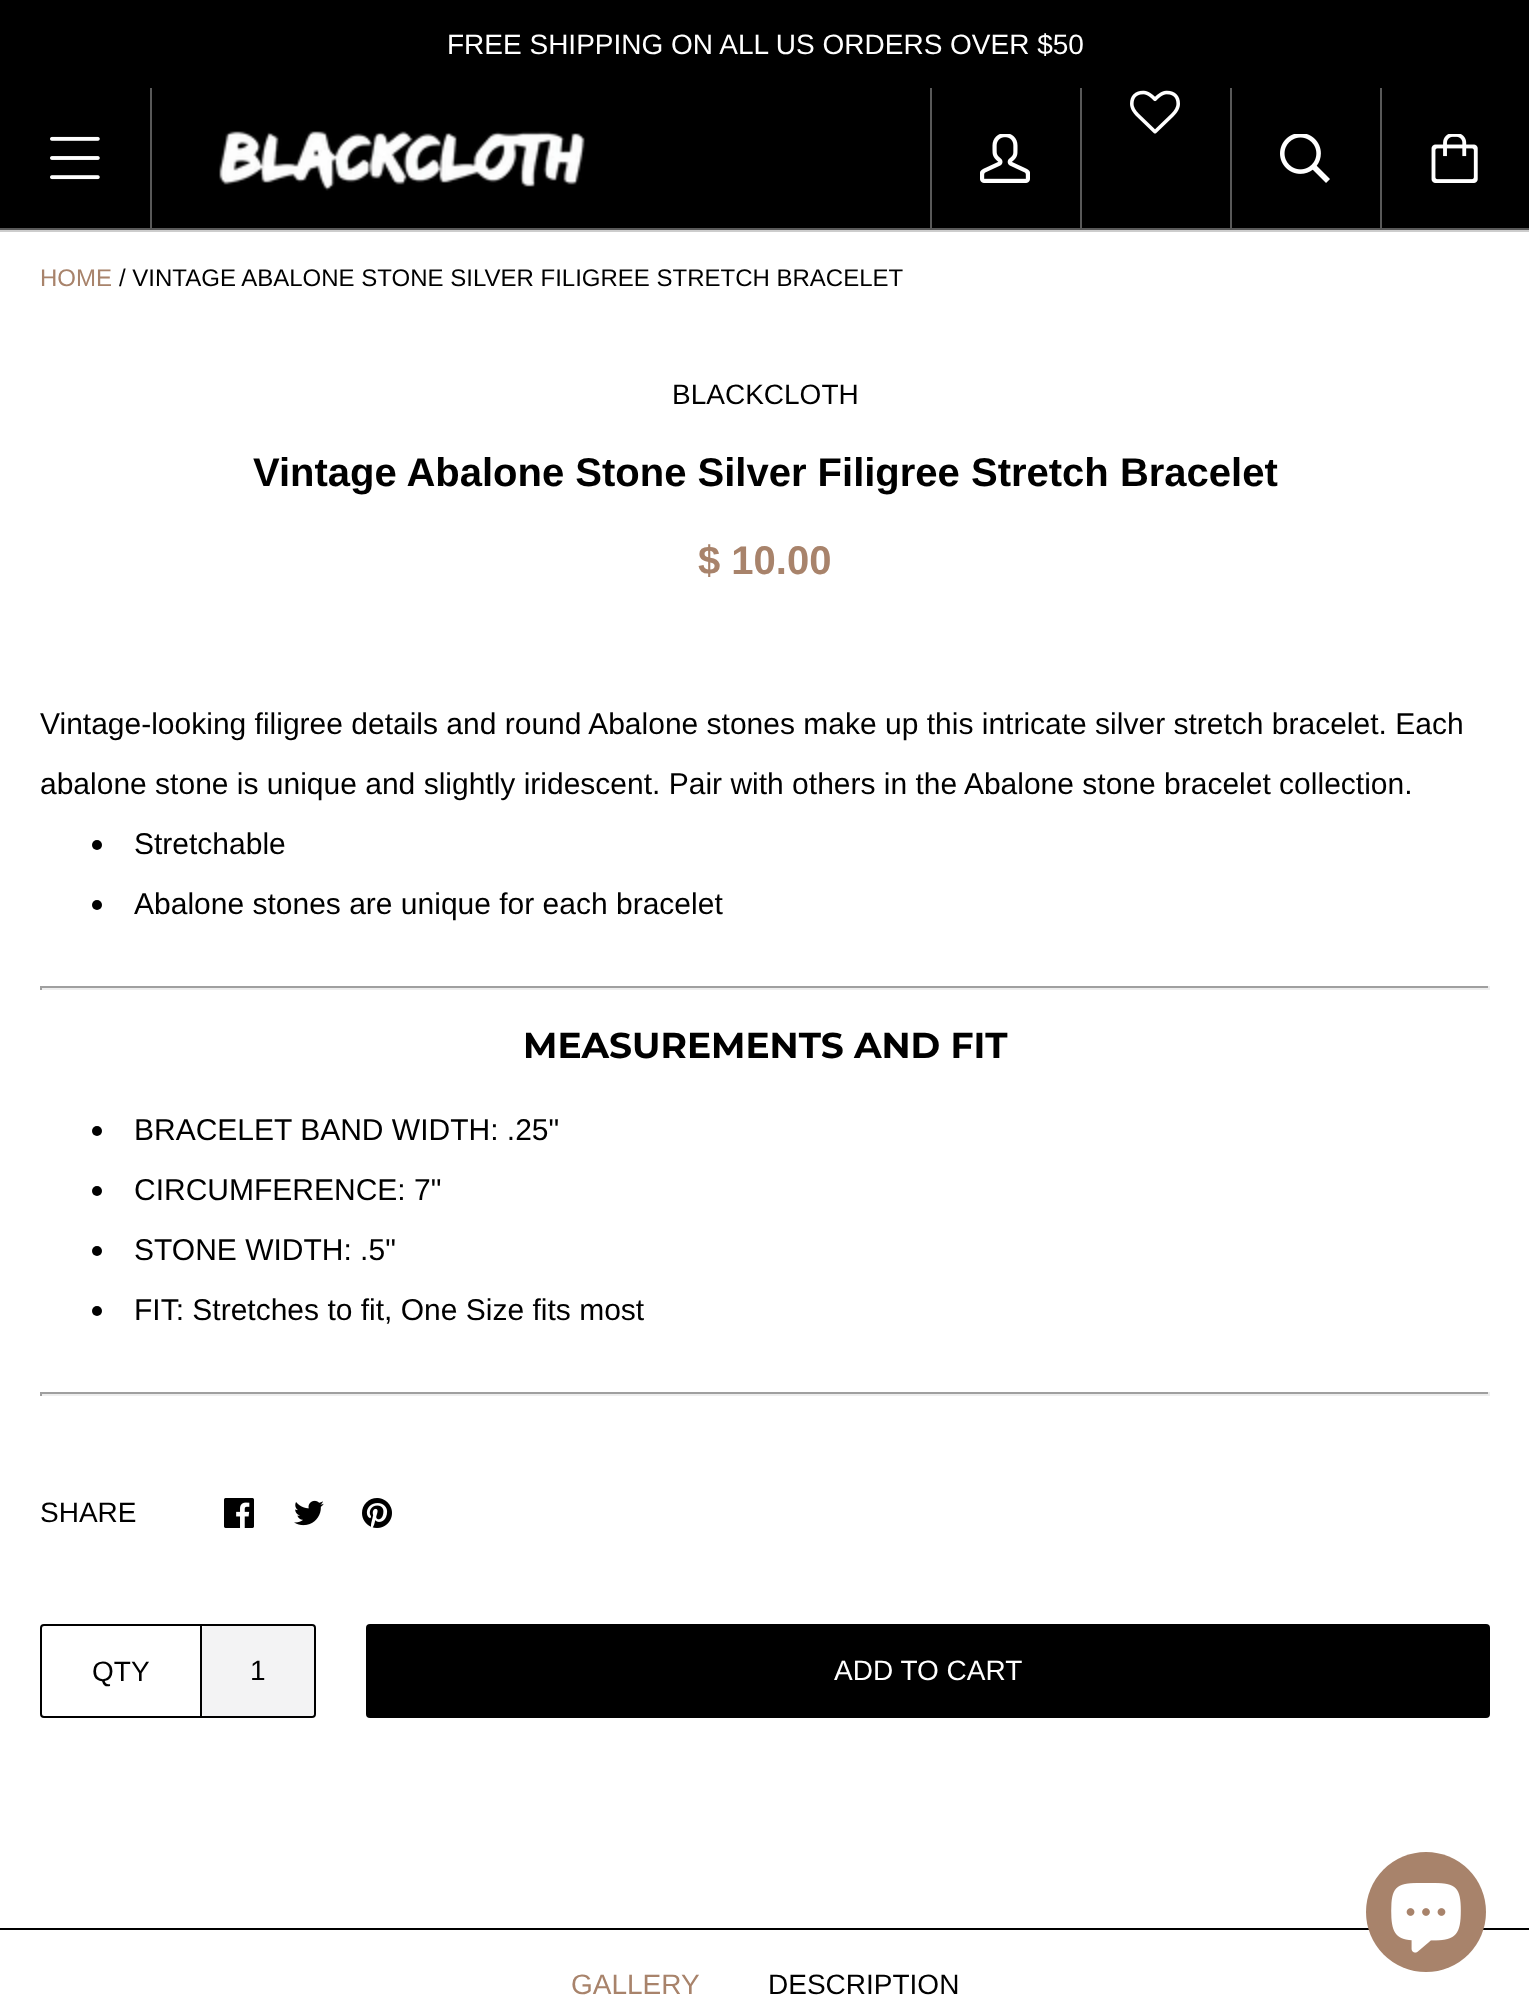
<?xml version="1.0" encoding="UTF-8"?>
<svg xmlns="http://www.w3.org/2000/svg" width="1529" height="2013">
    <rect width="100%" height="100%" fill="#FFFFFF"/>
    <rect x="0" y="0" width="1529" height="228" fill="#000000"/>
    <text x="447" y="54" font-family="Liberation Sans" font-size="28" fill="#FFFFFF">FREE SHIPPING ON ALL US ORDERS OVER $50</text>
    <rect x="0" y="230" width="1529" height="2" fill="#CDCDCD"/>
    <rect x="0" y="228" width="1529" height="2" fill="#595959"/>
    <image x="50" y="136" width="50" height="44" href="img_01.png"/>
    <rect x="150" y="88" width="2" height="140" fill="#595959"/>
    <image x="219" y="131" width="366" height="60" href="img_02.png"/>
    <rect x="930" y="88" width="2" height="140" fill="#595959"/>
    <image x="980" y="134" width="50" height="49" href="img_03.png"/>
    <rect x="1080" y="88" width="2" height="140" fill="#595959"/>
    <image x="1130" y="90" width="50" height="44" href="img_04.png"/>
    <rect x="1230" y="88" width="2" height="140" fill="#595959"/>
    <image x="1280" y="134" width="50" height="49" href="img_05.png"/>
    <rect x="1380" y="88" width="2" height="140" fill="#595959"/>
    <image x="1431" y="134" width="47" height="49" href="img_06.png"/>
    <text x="40" y="286" font-family="Liberation Sans" font-size="24" fill="#A8836B">HOME</text>
    <text x="119" y="286" font-family="Liberation Sans" font-size="24" fill="#000000">/ VINTAGE ABALONE STONE SILVER FILIGREE STRETCH BRACELET</text>
    <text x="672" y="404" font-family="Liberation Sans" font-size="28" fill="#000000">BLACKCLOTH</text>
    <text x="253" y="486" font-family="Liberation Sans" font-size="40" font-weight="700" fill="#000000">Vintage Abalone Stone Silver Filigree Stretch Bracelet</text>
    <text x="698" y="574" font-family="Liberation Sans" font-size="40" font-weight="700" fill="#A8836B">$ 10.00</text>
    <text x="40" y="734" font-family="Liberation Sans" font-size="30" fill="#000000">Vintage-looking filigree details and round Abalone stones make up this intricate silver stretch bracelet. Each</text>
    <text x="40" y="794" font-family="Liberation Sans" font-size="30" fill="#000000">abalone stone is unique and slightly iridescent. Pair with others in the Abalone stone bracelet collection.</text>
    <circle cx="97" cy="845" r="5" fill="#000000"/>
    <text x="134" y="854" font-family="Liberation Sans" font-size="30" fill="#000000">Stretchable</text>
    <circle cx="97" cy="905" r="5" fill="#000000"/>
    <text x="134" y="914" font-family="Liberation Sans" font-size="30" fill="#000000">Abalone stones are unique for each bracelet</text>
    <rect x="40" y="986" width="1450" height="2" fill="#9F9F9F"/>
    <rect x="1488" y="986" width="2" height="4" fill="#EEEEEE"/>
    <rect x="40" y="988" width="1450" height="2" fill="#EEEEEE"/>
    <rect x="40" y="986" width="2" height="4" fill="#9F9F9F"/>
    <text x="523" y="1058" font-family="Montserrat" font-size="36" font-weight="100" fill="#000000">MEASUREMENTS AND FIT</text>
    <circle cx="97" cy="1131" r="5" fill="#000000"/>
    <text x="134" y="1140" font-family="Liberation Sans" font-size="30" fill="#000000">BRACELET BAND WIDTH: .25"</text>
    <circle cx="97" cy="1191" r="5" fill="#000000"/>
    <text x="134" y="1200" font-family="Liberation Sans" font-size="30" fill="#000000">CIRCUMFERENCE: 7"</text>
    <circle cx="97" cy="1251" r="5" fill="#000000"/>
    <text x="134" y="1260" font-family="Liberation Sans" font-size="30" fill="#000000">STONE WIDTH: .5"</text>
    <circle cx="97" cy="1311" r="5" fill="#000000"/>
    <text x="134" y="1320" font-family="Liberation Sans" font-size="30" fill="#000000">FIT: Stretches to fit, One Size fits most</text>
    <rect x="40" y="1392" width="1450" height="2" fill="#9F9F9F"/>
    <rect x="1488" y="1392" width="2" height="4" fill="#EEEEEE"/>
    <rect x="40" y="1394" width="1450" height="2" fill="#EEEEEE"/>
    <rect x="40" y="1392" width="2" height="4" fill="#9F9F9F"/>
    <text x="40" y="1522" font-family="Liberation Sans" font-size="28" fill="#000000">SHARE</text>
    <image x="224" y="1498" width="30" height="30" href="img_07.png"/>
    <image x="294" y="1500" width="30" height="26" href="img_08.png"/>
    <image x="362" y="1498" width="30" height="30" href="img_09.png"/>
    <rect x="41" y="1625" width="274" height="92" rx="3" fill="none" stroke="#000000" stroke-width="2"/>
    <rect x="200" y="1626" width="2" height="90" fill="#000000"/>
    <text x="92" y="1681" font-family="Liberation Sans" font-size="28" fill="#000000">QTY</text>
    <rect x="202" y="1626" width="112" height="90" rx="4" fill="#F3F3F4"/>
    <text x="250" y="1680" font-family="Liberation Sans" font-size="28" fill="#000000">1</text>
    <rect x="366" y="1624" width="1124" height="94" rx="4" fill="#000000"/>
    <text x="834" y="1680" font-family="Liberation Sans" font-size="28" fill="#FFFFFF">ADD TO CART</text>
    <rect x="0" y="1928" width="1529" height="2" fill="#000000"/>
    <text x="571" y="1994" font-family="Liberation Sans" font-size="28" fill="#A8836B">GALLERY</text>
    <text x="768" y="1994" font-family="Liberation Sans" font-size="28" fill="#000000">DESCRIPTION</text>
    <circle cx="1426" cy="1912" r="60" fill="#A8836B"/>
    <image x="1391" y="1883" width="70" height="70" href="img_10.png"/>
</svg>
